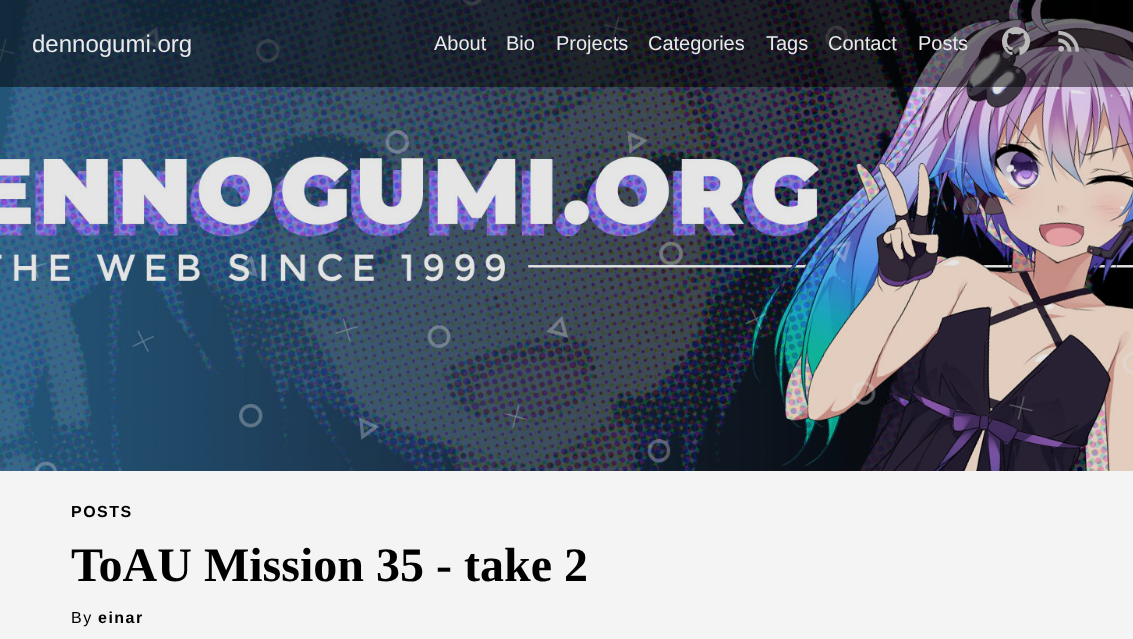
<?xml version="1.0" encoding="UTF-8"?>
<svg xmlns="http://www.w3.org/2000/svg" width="1133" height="639">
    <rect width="100%" height="100%" fill="#F4F4F4"/>
    <image x="0" y="0" width="1133" height="471" href="img_01.png"/>
    <rect x="0" y="0" width="1133" height="87" fill="#000000" fill-opacity="0.5"/>
    <text x="32" y="52" font-family="Liberation Sans" font-size="24" fill="#E8EAEC">dennogumi.org</text>
    <text x="434" y="50" font-family="Liberation Sans" font-size="20" fill="#E8EAEC">About</text>
    <text x="506" y="50" font-family="Liberation Sans" font-size="20" fill="#E8EAEC">Bio</text>
    <text x="556" y="50" font-family="Liberation Sans" font-size="20" fill="#E8EAEC">Projects</text>
    <text x="648" y="50" font-family="Liberation Sans" font-size="20" fill="#E8EAEC">Categories</text>
    <text x="766" y="50" font-family="Liberation Sans" font-size="20" fill="#E8EAEC">Tags</text>
    <text x="828" y="50" font-family="Liberation Sans" font-size="20" fill="#E8EAEC">Contact</text>
    <text x="918" y="50" font-family="Liberation Sans" font-size="20" fill="#E8EAEC">Posts</text>
    <image x="1002" y="27" width="28" height="28" href="img_02.png"/>
    <image x="1058" y="30" width="21" height="22" href="img_03.png"/>
    <text x="71" y="517" font-family="Liberation Sans" font-size="16" font-weight="700" letter-spacing="1.5" fill="#000000">POSTS</text>
    <text x="71" y="581" font-family="Liberation Serif" font-size="48" font-weight="700" fill="#000000">ToAU Mission 35 - take 2</text>
    <text x="71" y="623" font-family="Liberation Sans" font-size="16" letter-spacing="1.5" fill="#000000">By</text>
    <text x="98" y="623" font-family="Liberation Sans" font-size="16" font-weight="700" letter-spacing="1.5" fill="#000000">einar</text>
</svg>
